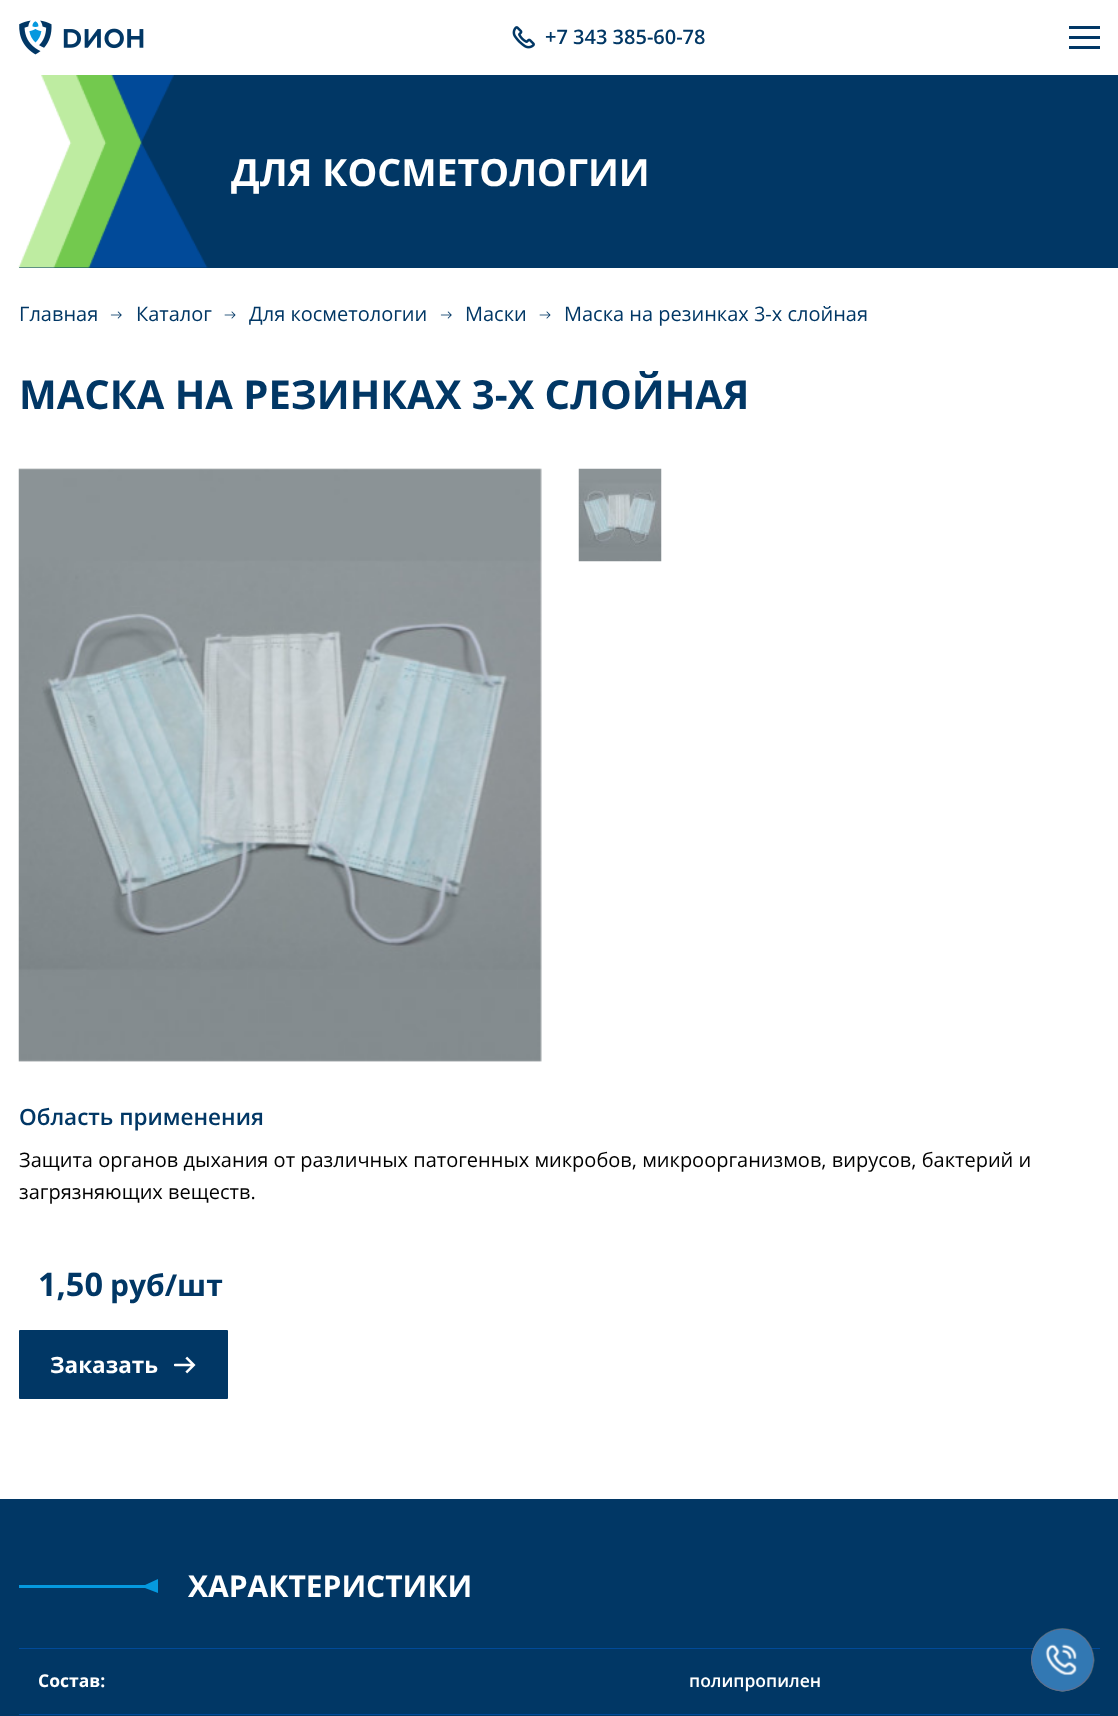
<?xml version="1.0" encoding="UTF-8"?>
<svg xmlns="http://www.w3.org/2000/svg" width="1118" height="1716">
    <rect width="100%" height="100%" fill="#FFFFFF"/>
    <image x="19" y="20" width="125" height="35" href="img_01.png"/>
    <image x="512" y="26" width="23" height="23" href="img_02.png"/>
    <text x="545" y="44" font-family="Open Sans" font-size="20" font-weight="600" fill="#013765">+7 343 385-60-78</text>
    <rect x="1069" y="26" width="31" height="3" fill="#013765"/>
    <rect x="1069" y="36" width="31" height="3" fill="#013765"/>
    <rect x="1069" y="46" width="31" height="3" fill="#013765"/>
    <rect x="19" y="75" width="1099" height="193" fill="#013765"/>
    <image x="18" y="75" width="190" height="193" href="img_03.png"/>
    <text x="231" y="186" font-family="Open Sans" font-size="37.5" font-weight="700" fill="#FFFFFF">ДЛЯ КОСМЕТОЛОГИИ</text>
    <text x="19" y="321" font-family="Open Sans" font-size="20" fill="#013765">Главная</text>
    <image x="110" y="311" width="12" height="8" href="img_04.png"/>
    <text x="136" y="321" font-family="Open Sans" font-size="20" fill="#013765">Каталог</text>
    <image x="224" y="311" width="12" height="8" href="img_05.png"/>
    <text x="249" y="321" font-family="Open Sans" font-size="20" fill="#013765">Для косметологии</text>
    <image x="440" y="311" width="12" height="8" href="img_04.png"/>
    <text x="465" y="321" font-family="Open Sans" font-size="20" fill="#013765">Маски</text>
    <image x="539" y="311" width="12" height="8" href="img_05.png"/>
    <text x="564" y="321" font-family="Open Sans" font-size="20" fill="#013765">Маска на резинках 3-х слойная</text>
    <text x="19" y="409" font-family="Open Sans" font-size="40" font-weight="700" fill="#013765">МАСКА НА РЕЗИНКАХ 3-Х СЛОЙНАЯ</text>
    <image x="18" y="468" width="524" height="594" href="img_06.png"/>
    <image x="578" y="468" width="84" height="94" href="img_07.png"/>
    <text x="19" y="1125" font-family="Open Sans" font-size="22.5" font-weight="600" fill="#013765">Область применения</text>
    <text font-family="Open Sans" font-size="20" fill="#000000">
        <tspan x="19" y="1167">Защита органов дыхания от различных патогенных микробов, микроорганизмов, вирусов, бактерий и</tspan>
        <tspan x="19" y="1199">загрязняющих веществ.</tspan>
    </text>
    <text x="38" y="1296" font-family="Open Sans" font-size="32.5" font-weight="700" fill="#013765">1,50</text>
    <text x="110" y="1296" font-family="Open Sans" font-size="30" font-weight="700" fill="#013765">руб/шт</text>
    <rect x="19" y="1330" width="209" height="69" rx="1" fill="#013765"/>
    <text x="50" y="1373" font-family="Open Sans" font-size="22.5" font-weight="700" fill="#FFFFFF">Заказать</text>
    <image x="174" y="1356" width="22" height="18" href="img_08.png"/>
    <rect x="0" y="1499" width="1118" height="217" fill="#013765"/>
    <path d="M 145 1588 L 158 1593 V 1579 L 145 1585 Z M 19 1588 H 146 V 1585 H 19 Z" fill="#0599DF"/>
    <text x="188" y="1597" font-family="Open Sans" font-size="30" font-weight="700" fill="#FFFFFF">ХАРАКТЕРИСТИКИ</text>
    <rect x="19" y="1648" width="1081" height="1" fill="#014A99"/>
    <rect x="19" y="1714" width="1081" height="1" fill="#014A99"/>
    <text x="38" y="1687" font-family="Open Sans" font-size="17.5" font-weight="700" fill="#FFFFFF">Состав:</text>
    <text x="689" y="1687" font-family="Open Sans" font-size="17.5" font-weight="600" fill="#FFFFFF">полипропилен</text>
    <image x="1031" y="1628" width="64" height="64" href="img_09.png"/>
    <image x="1031" y="1628" width="64" height="64" href="img_10.png"/>
    <image x="1031" y="1628" width="64" height="64" href="img_11.png"/>
    <image x="1031" y="1628" width="64" height="64" href="img_12.png"/>
</svg>
